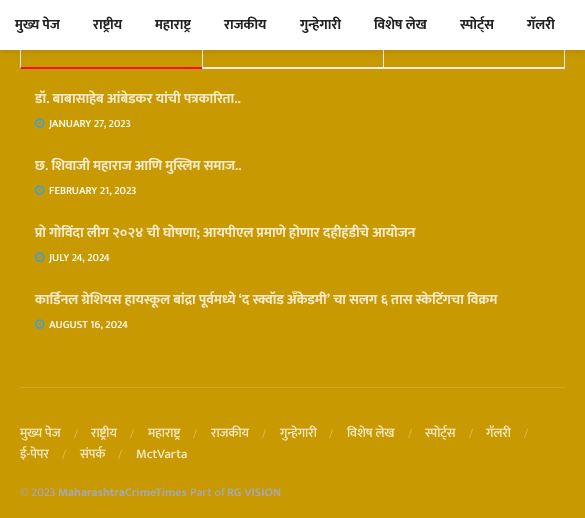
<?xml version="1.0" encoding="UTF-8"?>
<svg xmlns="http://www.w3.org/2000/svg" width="585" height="518">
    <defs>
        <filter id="blur1" x="-50%" y="-200%" width="200%" height="500%"><feGaussianBlur stdDeviation="3"/></filter>
    </defs>
    <rect width="100%" height="100%" fill="#C89901"/>
    <path d="M 202 69 H 20 L 21 67 H 202 Z" fill="#F70D28"/>
    <path d="M 20 69 V 30 L 21 31 V 67 Z" fill="#EEEEEE"/>
    <rect x="202" y="67" width="181" height="2" fill="#EEEEEE"/>
    <rect x="202" y="50" width="1" height="19" fill="#EEEEEE"/>
    <rect x="564" y="50" width="1" height="19" fill="#EEEEEE"/>
    <rect x="383" y="67" width="182" height="2" fill="#EEEEEE"/>
    <rect x="383" y="50" width="1" height="19" fill="#EEEEEE"/>
    <rect x="0" y="-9" width="585" height="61" fill="#000000" fill-opacity="0.1" filter="url(#blur1)"/>
    <rect x="0" y="0" width="585" height="50" fill="#FFFFFF"/>
    <text x="15" y="29" font-family="Mukta" font-size="14" font-weight="700" fill="#212121">मुख्य पेज</text>
    <text x="93" y="29" font-family="Mukta" font-size="14" font-weight="700" fill="#212121">राष्ट्रीय</text>
    <text x="155" y="29" font-family="Mukta" font-size="14" font-weight="700" fill="#212121">महाराष्ट्र</text>
    <text x="224" y="29" font-family="Mukta" font-size="14" font-weight="700" fill="#212121">राजकीय</text>
    <text x="300" y="29" font-family="Mukta" font-size="14" font-weight="700" fill="#212121">गुन्हेगारी</text>
    <text x="374" y="29" font-family="Mukta" font-size="14" font-weight="700" fill="#212121">विशेष लेख</text>
    <text x="460" y="29" font-family="Mukta" font-size="14" font-weight="700" fill="#212121">स्पोर्ट्स</text>
    <text x="527" y="29" font-family="Mukta" font-size="14" font-weight="700" fill="#212121">गॅलरी</text>
    <text x="35" y="103" font-family="Mukta" font-size="14" font-weight="700" fill="#F4EBCC">डॉ. बाबासाहेब आंबेडकर यांची पत्रकारिता..</text>
    <image x="35" y="118" width="10" height="10" href="img_01.png"/>
    <text x="49" y="127" font-family="Mukta" font-size="11" font-weight="500" fill="#FFFFFF">JANUARY 27, 2023</text>
    <text x="35" y="170" font-family="Mukta" font-size="14" font-weight="700" fill="#F4EBCC">छ. शिवाजी महाराज आणि मुस्लिम समाज..</text>
    <image x="35" y="185" width="10" height="10" href="img_01.png"/>
    <text x="49" y="194" font-family="Mukta" font-size="11" font-weight="500" fill="#FFFFFF">FEBRUARY 21, 2023</text>
    <text x="35" y="237" font-family="Mukta" font-size="14" font-weight="700" fill="#F4EBCC">प्रो गोविंदा लीग २०२४ ची घोषणा; आयपीएल प्रमाणे होणार दहीहंडीचे आयोजन</text>
    <image x="35" y="252" width="10" height="10" href="img_01.png"/>
    <text x="49" y="261" font-family="Mukta" font-size="11" font-weight="500" fill="#FFFFFF">JULY 24, 2024</text>
    <text x="35" y="304" font-family="Mukta" font-size="14" font-weight="700" fill="#F4EBCC">कार्डिनल ग्रेशियस हायस्कूल बांद्रा पूर्वमध्ये ‘द स्क्वॉड अँकेडमी’ चा सलग ६ तास स्केटिंगचा विक्रम</text>
    <image x="35" y="319" width="10" height="10" href="img_01.png"/>
    <text x="49" y="328" font-family="Mukta" font-size="11" font-weight="500" fill="#FFFFFF">AUGUST 16, 2024</text>
    <rect x="20" y="387" width="545" height="1" fill="#D0A827"/>
    <text x="20" y="437" font-family="Mukta" font-size="13" font-weight="500" fill="#F4EBCC">मुख्य पेज</text>
    <text x="74" y="437" font-family="Mukta" font-size="11" font-weight="500" fill="#D9B84D">/</text>
    <text x="91" y="437" font-family="Mukta" font-size="13" font-weight="500" fill="#F4EBCC">राष्ट्रीय</text>
    <text x="130" y="437" font-family="Mukta" font-size="11" font-weight="500" fill="#D9B84D">/</text>
    <text x="148" y="437" font-family="Mukta" font-size="13" font-weight="500" fill="#F4EBCC">महाराष्ट्र</text>
    <text x="193" y="437" font-family="Mukta" font-size="11" font-weight="500" fill="#D9B84D">/</text>
    <text x="211" y="437" font-family="Mukta" font-size="13" font-weight="500" fill="#F4EBCC">राजकीय</text>
    <text x="262" y="437" font-family="Mukta" font-size="11" font-weight="500" fill="#D9B84D">/</text>
    <text x="280" y="437" font-family="Mukta" font-size="13" font-weight="500" fill="#F4EBCC">गुन्हेगारी</text>
    <text x="329" y="437" font-family="Mukta" font-size="11" font-weight="500" fill="#D9B84D">/</text>
    <text x="347" y="437" font-family="Mukta" font-size="13" font-weight="500" fill="#F4EBCC">विशेष लेख</text>
    <text x="408" y="437" font-family="Mukta" font-size="11" font-weight="500" fill="#D9B84D">/</text>
    <text x="425" y="437" font-family="Mukta" font-size="13" font-weight="500" fill="#F4EBCC">स्पोर्ट्स</text>
    <text x="469" y="437" font-family="Mukta" font-size="11" font-weight="500" fill="#D9B84D">/</text>
    <text x="486" y="437" font-family="Mukta" font-size="13" font-weight="500" fill="#F4EBCC">गॅलरी</text>
    <text x="524" y="437" font-family="Mukta" font-size="11" font-weight="500" fill="#D9B84D">/</text>
    <text x="20" y="458" font-family="Mukta" font-size="13" font-weight="500" fill="#F4EBCC">ई-पेपर</text>
    <text x="62" y="458" font-family="Mukta" font-size="11" font-weight="500" fill="#D9B84D">/</text>
    <text x="80" y="458" font-family="Mukta" font-size="13" font-weight="500" fill="#F4EBCC">संपर्क</text>
    <text x="118" y="458" font-family="Mukta" font-size="11" font-weight="500" fill="#D9B84D">/</text>
    <text x="136" y="458" font-family="Mukta" font-size="13" font-weight="500" fill="#F4EBCC">MctVarta</text>
    <text x="20" y="496" font-family="Mukta" font-size="12" font-weight="500" fill="#A8A8AA">© 2023</text>
    <text x="58" y="496" font-family="Mukta" font-size="12" font-weight="700" fill="#A8A8AA">MaharashtraCrimeTimes</text>
    <text x="190" y="496" font-family="Mukta" font-size="12" font-weight="500" fill="#A8A8AA">Part of</text>
    <text x="227" y="496" font-family="Mukta" font-size="12" font-weight="700" fill="#A8A8AA">RG VISION</text>
</svg>
